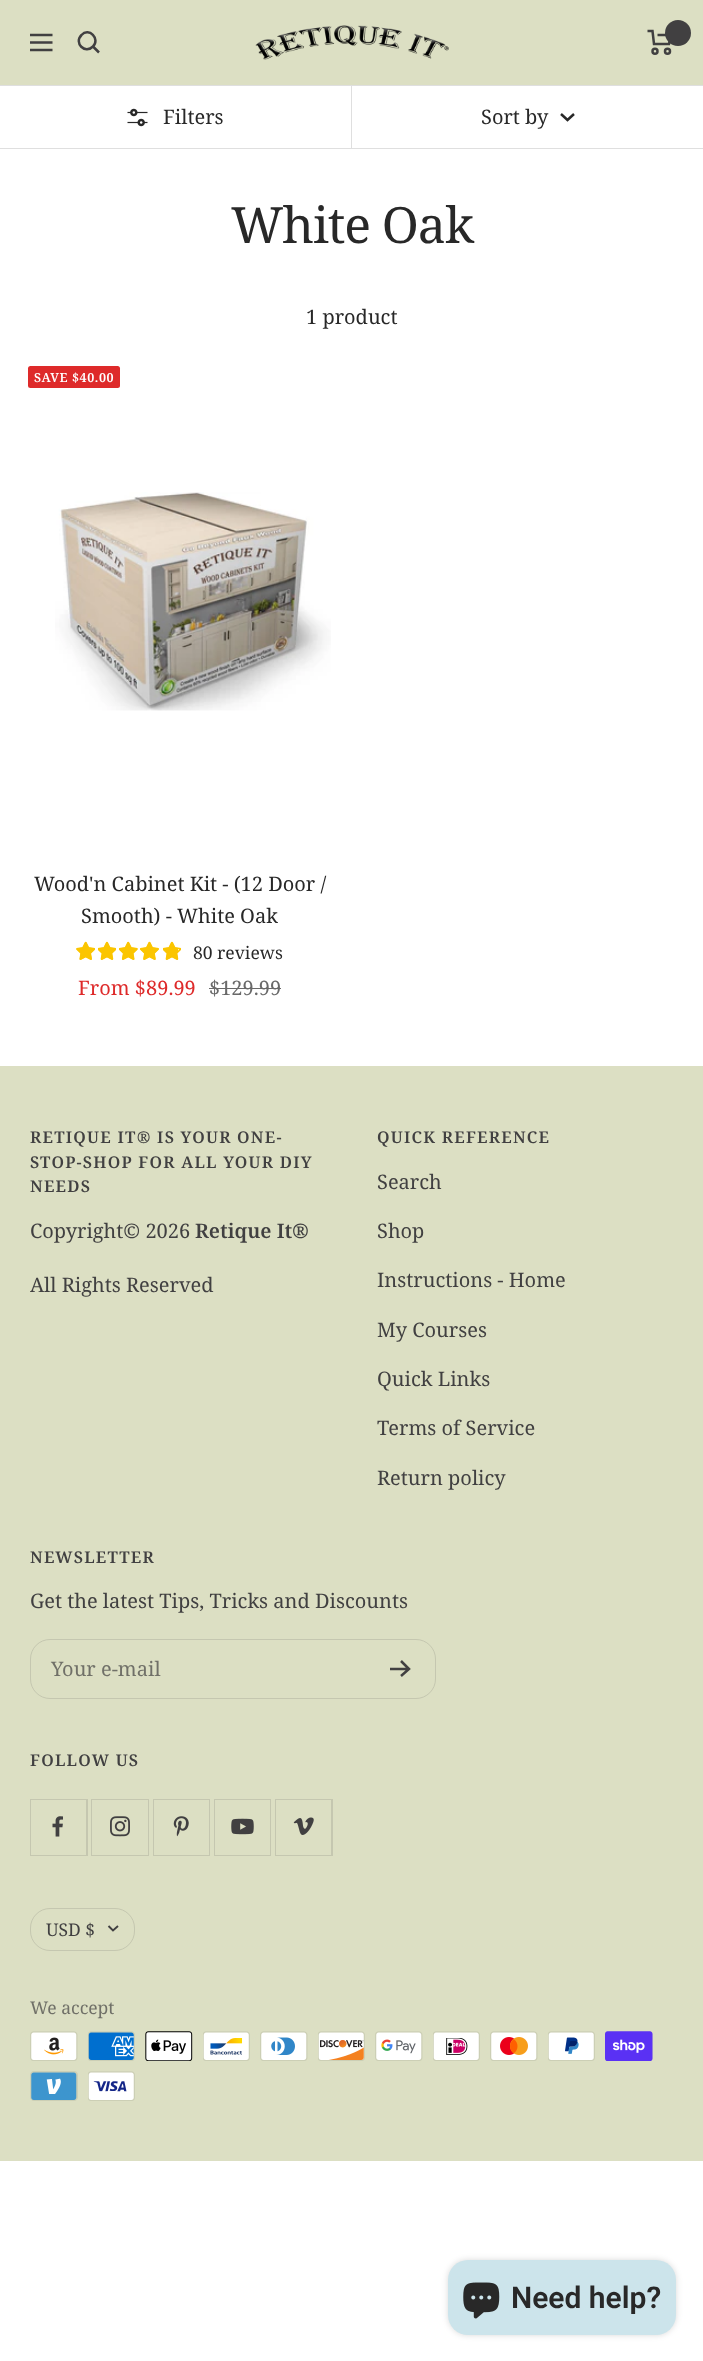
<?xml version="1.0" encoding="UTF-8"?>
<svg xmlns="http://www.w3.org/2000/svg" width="703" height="2361">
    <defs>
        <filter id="blur1" x="-50%" y="-200%" width="200%" height="500%"><feGaussianBlur stdDeviation="3"/></filter>
    </defs>
    <rect width="100%" height="100%" fill="#FFFFFF"/>
    <rect x="0" y="0" width="703" height="85" fill="#DCDFC3"/>
    <path d="M 30 35 H 52.5 M 30 50 H 52.5 Z M 30 42.5 H 52.5 Z" fill="none" stroke="#414041" stroke-width="2.5"/>
    <path d="M 93 46.5 C 100.5 39 89 27 81.5 35 C 73.5 43 85 54.5 93 46.5 Z M 93 46.5 L 99 52.5" fill="none" stroke="#414041" stroke-width="2.5"/>
    <image x="255" y="25" width="194" height="35" href="img_01.png"/>
    <path d="M 647.5 31 H 652.5 L 654 44 H 669 L 671 35 H 657.5" fill="none" stroke="#414041" stroke-width="2.5"/>
    <circle cx="655" cy="51.2" r="2.5" fill="none" stroke="#414041" stroke-width="2.5"/>
    <circle cx="667.5" cy="51.2" r="2.5" fill="none" stroke="#414041" stroke-width="2.5"/>
    <circle cx="678" cy="33" r="13" fill="#414041"/>
    <rect x="0" y="85" width="703" height="1" fill="#DFDFDF"/>
    <rect x="0" y="148" width="703" height="1" fill="#DFDFDF"/>
    <image x="127" y="108" width="21" height="19" href="img_02.png"/>
    <text x="163" y="124" font-family="Noto Serif" font-size="20" fill="#282828">Filters</text>
    <rect x="351" y="85" width="1" height="64" fill="#DFDFDF"/>
    <text x="481" y="124" font-family="Noto Serif" font-size="20" fill="#282828">Sort by</text>
    <path d="M 561 114 L 567.5 120 L 574 114" fill="none" stroke="#282828" stroke-width="2.5"/>
    <text x="231" y="243" font-family="Noto Serif" font-size="50" letter-spacing="-1.1" fill="#282828">White Oak</text>
    <text x="306" y="324" font-family="Noto Serif" font-size="20" fill="#282828">1 product</text>
    <rect x="28" y="366" width="92" height="22" rx="2.5" fill="#DE2A2A"/>
    <text x="34" y="382" font-family="Noto Serif" font-size="12.5" font-weight="600" letter-spacing="0.6" fill="#FFFFFF">SAVE $40.00</text>
    <image x="55" y="492" width="276" height="219" href="img_03.png"/>
    <text x="34" y="891" font-family="Noto Serif" font-size="20" fill="#282828">Wood'n Cabinet Kit - (12 Door /</text>
    <text x="81" y="923" font-family="Noto Serif" font-size="20" fill="#282828">Smooth) - White Oak</text>
    <image x="76" y="941" width="19" height="19" href="img_04.png"/>
    <image x="76" y="941" width="19" height="19" href="img_05.png"/>
    <image x="98" y="941" width="18" height="19" href="img_06.png"/>
    <image x="98" y="941" width="18" height="19" href="img_07.png"/>
    <image x="119" y="941" width="19" height="19" href="img_08.png"/>
    <image x="119" y="941" width="19" height="19" href="img_09.png"/>
    <image x="140" y="941" width="19" height="19" href="img_10.png"/>
    <image x="140" y="941" width="19" height="19" href="img_11.png"/>
    <image x="163" y="941" width="18" height="19" href="img_06.png"/>
    <image x="163" y="941" width="15" height="19" href="img_12.png"/>
    <text x="193" y="959" font-family="Noto Serif" font-size="17.5" fill="#282828">80 reviews</text>
    <text x="78" y="995" font-family="Noto Serif" font-size="20" fill="#DE2A2A">From $89.99</text>
    <text x="209" y="995" font-family="Noto Serif" font-size="20" fill="#696969">$129.99</text>
    <rect x="209" y="988" width="72" height="1" fill="#696969"/>
    <rect x="0" y="1066" width="703" height="1095" fill="#DCDFC3"/>
    <text font-family="Noto Serif" font-size="16.25" font-weight="600" letter-spacing="1.25" fill="#414041">
        <tspan x="30" y="1143">RETIQUE IT® IS YOUR ONE-</tspan>
        <tspan x="30" y="1168">STOP-SHOP FOR ALL YOUR DIY</tspan>
        <tspan x="30" y="1192">NEEDS</tspan>
    </text>
    <text x="30" y="1238" font-family="Noto Serif" font-size="20" fill="#414041">Copyright© 2026</text>
    <text x="195" y="1238" font-family="Noto Serif" font-size="20" font-weight="600" fill="#414041">Retique It®</text>
    <text x="30" y="1292" font-family="Noto Serif" font-size="20" fill="#414041">All Rights Reserved</text>
    <text x="377" y="1143" font-family="Noto Serif" font-size="16.25" font-weight="600" letter-spacing="1.25" fill="#414041">QUICK REFERENCE</text>
    <text x="377" y="1189" font-family="Noto Serif" font-size="20" fill="#414041">Search</text>
    <text x="377" y="1238" font-family="Noto Serif" font-size="20" fill="#414041">Shop</text>
    <text x="377" y="1287" font-family="Noto Serif" font-size="20" fill="#414041">Instructions - Home</text>
    <text x="377" y="1337" font-family="Noto Serif" font-size="20" fill="#414041">My Courses</text>
    <text x="377" y="1386" font-family="Noto Serif" font-size="20" fill="#414041">Quick Links</text>
    <text x="377" y="1435" font-family="Noto Serif" font-size="20" fill="#414041">Terms of Service</text>
    <text x="377" y="1485" font-family="Noto Serif" font-size="20" fill="#414041">Return policy</text>
    <text x="30" y="1563" font-family="Noto Serif" font-size="16.25" font-weight="600" letter-spacing="1.25" fill="#414041">NEWSLETTER</text>
    <text x="30" y="1608" font-family="Noto Serif" font-size="20" fill="#414041">Get the latest Tips, Tricks and Discounts</text>
    <rect x="30.5" y="1639.5" width="405" height="59" rx="19.5" fill="none" stroke="#C5C7B0"/>
    <text x="51" y="1676" font-family="Noto Serif" font-size="20" fill="#707068">Your e-mail</text>
    <path d="M 390 1669 H 409 M 401 1661 L 409 1669 L 401 1676" fill="none" stroke="#414041" stroke-width="2.5"/>
    <text x="30" y="1766" font-family="Noto Serif" font-size="16.25" font-weight="600" letter-spacing="1.25" fill="#414041">FOLLOW US</text>
    <path d="M 31 1855 V 1856 H 88 V 1800 H 86 V 1855 Z" fill="#C5C7B0"/>
    <rect x="30" y="1855" width="1" height="1" fill="#C5C7B0"/>
    <rect x="30" y="1799" width="58" height="1" fill="#C5C7B0"/>
    <rect x="30" y="1799" width="1" height="56" fill="#C5C7B0"/>
    <image x="52" y="1816" width="11" height="21" href="img_13.png"/>
    <path d="M 93 1855 V 1856 H 149 V 1800 H 148 V 1855 Z" fill="#C5C7B0"/>
    <path d="M 91 1800 V 1856 H 148 V 1800 V 1855 H 91 Z" fill="#C5C7B0"/>
    <rect x="91" y="1799" width="58" height="1" fill="#C5C7B0"/>
    <rect x="91" y="1799" width="1" height="56" fill="#C5C7B0"/>
    <image x="110" y="1816" width="20" height="21" href="img_14.png"/>
    <path d="M 154 1855 V 1856 H 210 V 1800 H 209 V 1855 Z" fill="#C5C7B0"/>
    <path d="M 153 1855 V 1856 H 209 V 1800 V 1855 Z" fill="#C5C7B0"/>
    <rect x="153" y="1799" width="57" height="1" fill="#C5C7B0"/>
    <rect x="153" y="1799" width="1" height="56" fill="#C5C7B0"/>
    <image x="173" y="1816" width="16" height="21" href="img_15.png"/>
    <path d="M 215 1855 V 1856 H 271 V 1800 H 270 V 1855 Z" fill="#C5C7B0"/>
    <rect x="214" y="1855" width="1" height="1" fill="#C5C7B0"/>
    <rect x="214" y="1799" width="57" height="1" fill="#C5C7B0"/>
    <rect x="214" y="1799" width="1" height="56" fill="#C5C7B0"/>
    <image x="231" y="1818" width="23" height="17" href="img_16.png"/>
    <path d="M 276 1855 V 1856 H 333 V 1800 H 331 V 1855 Z" fill="#C5C7B0"/>
    <rect x="275" y="1855" width="1" height="1" fill="#C5C7B0"/>
    <rect x="275" y="1799" width="58" height="1" fill="#C5C7B0"/>
    <rect x="275" y="1799" width="1" height="56" fill="#C5C7B0"/>
    <image x="293" y="1817" width="21" height="18" href="img_17.png"/>
    <rect x="30.5" y="1908.5" width="104" height="42" rx="19.5" fill="none" stroke="#C5C7B0"/>
    <text x="46" y="1936" font-family="Noto Serif" font-size="17.5" fill="#414041">USD $</text>
    <path d="M 108.5 1926 L 113 1930.5 L 118 1926" fill="none" stroke="#414041" stroke-width="1.9"/>
    <text x="30" y="2014" font-family="Noto Serif" font-size="17.5" fill="#707068">We accept</text>
    <image x="30" y="2031" width="48" height="30" href="img_18.png"/>
    <image x="88" y="2031" width="47" height="30" href="img_19.png"/>
    <image x="145" y="2031" width="48" height="30" href="img_20.png"/>
    <image x="203" y="2031" width="47" height="30" href="img_21.png"/>
    <image x="260" y="2031" width="48" height="30" href="img_22.png"/>
    <image x="318" y="2031" width="47" height="30" href="img_23.png"/>
    <image x="375" y="2031" width="48" height="30" href="img_24.png"/>
    <image x="433" y="2031" width="47" height="30" href="img_25.png"/>
    <image x="490" y="2031" width="48" height="30" href="img_26.png"/>
    <image x="548" y="2031" width="47" height="30" href="img_27.png"/>
    <image x="605" y="2031" width="48" height="30" href="img_28.png"/>
    <image x="30" y="2071" width="48" height="30" href="img_29.png"/>
    <image x="88" y="2071" width="47" height="30" href="img_30.png"/>
    <rect x="448" y="2260" width="228" height="75" rx="20" fill="#000000" fill-opacity="0.15" filter="url(#blur1)"/>
    <rect x="448" y="2260" width="228" height="75" rx="20" fill="#CCE4EB"/>
    <image x="463" y="2282" width="37" height="37" href="img_31.png"/>
    <text x="511" y="2308" font-family="Roboto" font-size="30" font-weight="600" fill="#282828">Need help?</text>
</svg>
